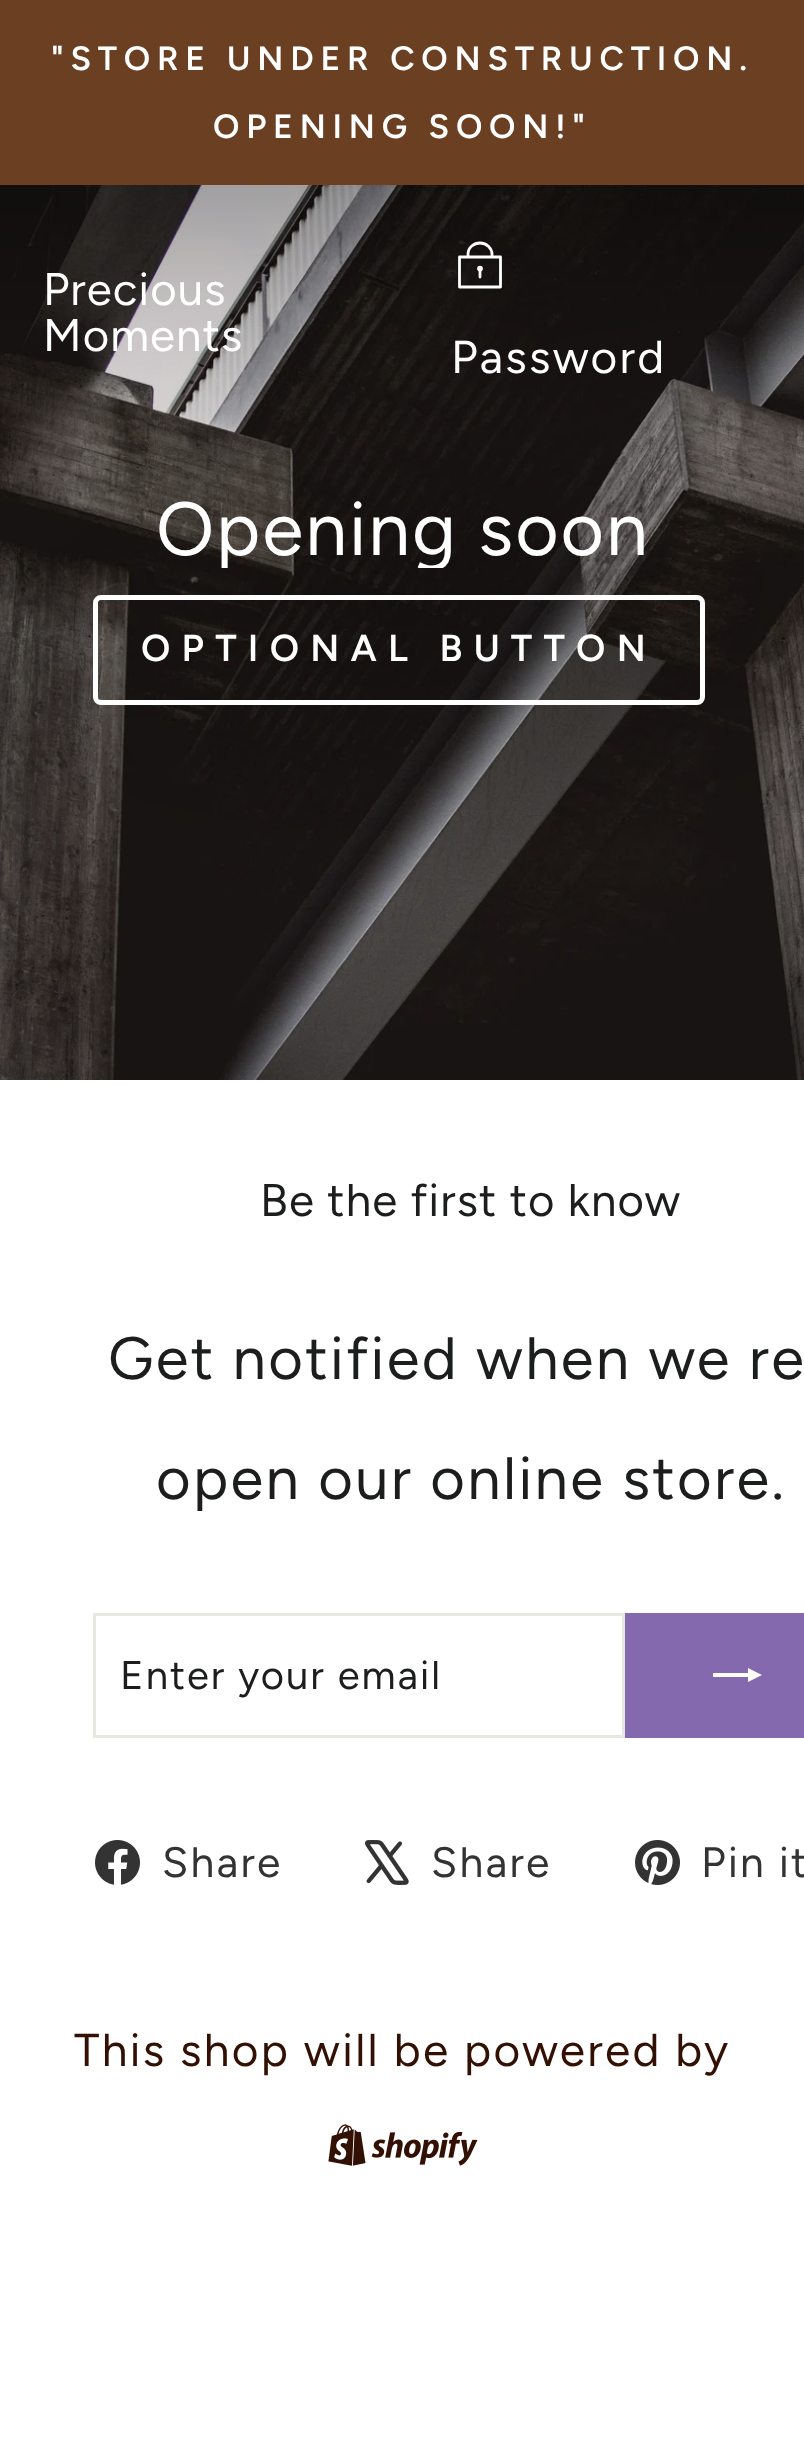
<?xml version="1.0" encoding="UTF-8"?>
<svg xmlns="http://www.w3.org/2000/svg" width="804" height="2437">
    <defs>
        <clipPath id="clip1"><rect x="155" y="493" width="495" height="75"/></clipPath>
        <clipPath id="clip2"><rect x="713" y="1650" width="50" height="50"/></clipPath>
    </defs>
    <rect width="100%" height="100%" fill="#FFFFFF"/>
    <rect x="0" y="0" width="804" height="185" fill="#6B3F21"/>
    <text x="51" y="70" font-family="Figtree" font-size="33.75" font-weight="600" letter-spacing="6.75" fill="#FFFFFF">"STORE UNDER CONSTRUCTION.</text>
    <text x="213" y="138" font-family="Figtree" font-size="33.75" font-weight="600" letter-spacing="6.75" fill="#FFFFFF">OPENING SOON!"</text>
    <image x="0" y="185" width="804" height="895" href="img_01.png"/>
    <text font-family="Figtree" font-size="45.6" letter-spacing="1.1" fill="#FFFFFF">
        <tspan x="43" y="305">Precious</tspan>
        <tspan x="43" y="351">Moments</tspan>
    </text>
    <path d="M 468 257 V 254 C 468 247.5 474 243 480 243 C 487 243 492 248.5 492 254 V 257 M 459.5 257 H 500.5 V 287 H 459.5 Z M 480 270 V 277" fill="none" stroke="#FFFFFF" stroke-width="2.8" stroke-linecap="round" stroke-linejoin="round"/>
    <circle cx="480" cy="268.6" r="1.5" fill="none" stroke="#FFFFFF" stroke-width="2.8"/>
    <text x="451" y="373" font-family="Figtree" font-size="46" letter-spacing="2.3" fill="#FFFFFF">Password</text>
    <g clip-path="url(#clip1)">
        <text x="156" y="555" font-family="Figtree" font-size="75" letter-spacing="1.9" fill="#FFFFFF">Opening soon</text>
    </g>
    <rect x="95.5" y="597.5" width="607" height="105" rx="5.5" fill="none" stroke="#FFFFFF" stroke-width="5"/>
    <text x="141" y="661" font-family="Figtree" font-size="37.5" font-weight="600" letter-spacing="11.25" fill="#FFFFFF">OPTIONAL BUTTON</text>
    <text x="260" y="1216" font-family="Figtree" font-size="45.6" letter-spacing="1.1" fill="#1C1D1D">Be the first to know</text>
    <text x="108" y="1379" font-family="Figtree" font-size="59.75" letter-spacing="2.3" fill="#1C1D1D">Get notified when we re</text>
    <text x="156" y="1499" font-family="Figtree" font-size="59.75" letter-spacing="2.3" fill="#1C1D1D">open our online store.</text>
    <rect x="94.5" y="1614.5" width="529" height="122" fill="none" stroke="#E8E8E1" stroke-width="3"/>
    <text x="120" y="1689" font-family="Figtree" font-size="40" letter-spacing="2" fill="#1C1D1D">Enter your email</text>
    <rect x="625" y="1613" width="179" height="125" fill="#8469AE"/>
    <g clip-path="url(#clip2)">
        <path d="M 712 1677 V 1673 H 748 V 1668 L 762 1675 L 748 1682 V 1677 Z" fill="#FFFFFF"/>
    </g>
    <image x="95" y="1840" width="45" height="45" href="img_02.png"/>
    <text x="162" y="1877" font-family="Figtree" font-size="42.5" letter-spacing="2.3" fill="#333333">Share</text>
    <image x="365" y="1840" width="44" height="45" href="img_03.png"/>
    <text x="431" y="1877" font-family="Figtree" font-size="42.5" letter-spacing="2.3" fill="#333333">Share</text>
    <image x="635" y="1840" width="45" height="45" href="img_04.png"/>
    <text x="701" y="1877" font-family="Figtree" font-size="42.5" letter-spacing="2.3" fill="#333333">Pin it</text>
    <text x="74" y="2066" font-family="Figtree" font-size="46" letter-spacing="2.3" fill="#321004">This shop will be powered by</text>
    <image x="328" y="2124" width="150" height="42" href="img_05.png"/>
</svg>
